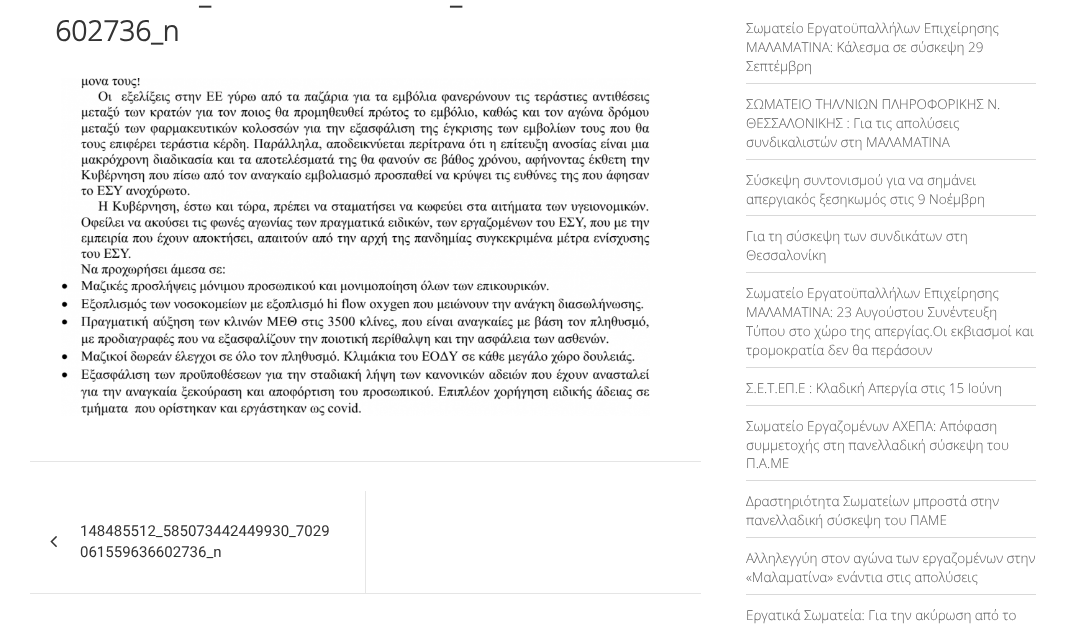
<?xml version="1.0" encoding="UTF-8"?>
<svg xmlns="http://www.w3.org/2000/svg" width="1081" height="635">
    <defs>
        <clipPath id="clip1"><rect x="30" y="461" width="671" height="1"/></clipPath>
        <filter id="blur1" x="-50%" y="-200%" width="200%" height="500%"><feGaussianBlur stdDeviation="0.5"/></filter>
        <clipPath id="clip2"><rect x="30" y="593" width="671" height="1"/></clipPath>
    </defs>
    <rect width="100%" height="100%" fill="#FFFFFF"/>
    <g clip-path="url(#clip1)">
        <rect x="30" y="-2" width="671" height="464" fill="#000000" fill-opacity="0.1" filter="url(#blur1)"/>
    </g>
    <text x="199" y="4" font-family="Open Sans" font-size="28" font-weight="700" fill="#333333">_</text>
    <text x="450" y="4" font-family="Open Sans" font-size="28" font-weight="700" fill="#333333">_</text>
    <text x="55" y="41" font-family="Open Sans" font-size="28" font-weight="700" fill="#333333">602736_n</text>
    <image x="61" y="78" width="589" height="338" href="img_01.png"/>
    <g clip-path="url(#clip2)">
        <rect x="30" y="492" width="671" height="102" fill="#000000" fill-opacity="0.1" filter="url(#blur1)"/>
    </g>
    <text x="80" y="536" font-family="Roboto" font-size="15" fill="#333333">148485512_585073442449930_7029</text>
    <image x="50" y="536" width="7" height="12" href="img_02.png"/>
    <text x="80" y="557" font-family="Roboto" font-size="15" fill="#333333">061559636602736_n</text>
    <rect x="365" y="491" width="1" height="102" fill="#E6E6E6"/>
    <rect x="746" y="83" width="290" height="1" fill="#D9D9D9"/>
    <text font-family="Open Sans" font-size="13.5" font-weight="300" fill="#555555">
        <tspan x="746" y="33">Σωματείο Εργατοϋπαλλήλων Επιχείρησης</tspan>
        <tspan x="746" y="52">ΜΑΛΑΜΑΤΙΝΑ: Κάλεσμα σε σύσκεψη 29</tspan>
        <tspan x="746" y="71">Σεπτέμβρη</tspan>
    </text>
    <rect x="746" y="159" width="290" height="1" fill="#D9D9D9"/>
    <text font-family="Open Sans" font-size="13.5" font-weight="300" fill="#555555">
        <tspan x="746" y="109">ΣΩΜΑΤΕΙΟ ΤΗΛ/ΝΙΩΝ ΠΛΗΡΟΦΟΡΙΚΗΣ Ν.</tspan>
        <tspan x="746" y="128">ΘΕΣΣΑΛΟΝΙΚΗΣ : Για τις απολύσεις</tspan>
        <tspan x="746" y="147">συνδικαλιστών στη ΜΑΛΑΜΑΤΙΝΑ</tspan>
    </text>
    <rect x="746" y="215" width="290" height="1" fill="#D9D9D9"/>
    <text font-family="Open Sans" font-size="13.5" font-weight="300" fill="#555555">
        <tspan x="746" y="185">Σύσκεψη συντονισμού για να σημάνει</tspan>
        <tspan x="746" y="204">απεργιακός ξεσηκωμός στις 9 Νοέμβρη</tspan>
    </text>
    <rect x="746" y="272" width="290" height="1" fill="#D9D9D9"/>
    <text font-family="Open Sans" font-size="13.5" font-weight="300" fill="#555555">
        <tspan x="746" y="241">Για τη σύσκεψη των συνδικάτων στη</tspan>
        <tspan x="746" y="260">Θεσσαλονίκη</tspan>
    </text>
    <rect x="746" y="367" width="290" height="1" fill="#D9D9D9"/>
    <text font-family="Open Sans" font-size="13.5" font-weight="300" fill="#555555">
        <tspan x="746" y="298">Σωματείο Εργατοϋπαλλήλων Επιχείρησης</tspan>
        <tspan x="746" y="317">ΜΑΛΑΜΑΤΙΝΑ: 23 Αυγούστου Συνέντευξη</tspan>
        <tspan x="746" y="336">Τύπου στο χώρο της απεργίας.Οι εκβιασμοί και</tspan>
        <tspan x="746" y="355">τρομοκρατία δεν θα περάσουν</tspan>
    </text>
    <rect x="746" y="405" width="290" height="1" fill="#D9D9D9"/>
    <text x="746" y="393" font-family="Open Sans" font-size="13.5" font-weight="300" fill="#555555">Σ.Ε.Τ.ΕΠ.Ε : Κλαδική Απεργία στις 15 Ιούνη</text>
    <rect x="746" y="480" width="290" height="1" fill="#D9D9D9"/>
    <text font-family="Open Sans" font-size="13.5" font-weight="300" fill="#555555">
        <tspan x="746" y="431">Σωματείο Εργαζομένων ΑΧΕΠΑ: Απόφαση</tspan>
        <tspan x="746" y="450">συμμετοχής στη πανελλαδική σύσκεψη του</tspan>
        <tspan x="746" y="468">Π.Α.ΜΕ</tspan>
    </text>
    <rect x="746" y="537" width="290" height="1" fill="#D9D9D9"/>
    <text font-family="Open Sans" font-size="13.5" font-weight="300" fill="#555555">
        <tspan x="746" y="506">Δραστηριότητα Σωματείων μπροστά στην</tspan>
        <tspan x="746" y="525">πανελλαδική σύσκεψη του ΠΑΜΕ</tspan>
    </text>
    <rect x="746" y="594" width="290" height="1" fill="#D9D9D9"/>
    <text font-family="Open Sans" font-size="13.5" font-weight="300" fill="#555555">
        <tspan x="746" y="563">Αλληλεγγύη στον αγώνα των εργαζομένων στην</tspan>
        <tspan x="746" y="582">«Μαλαματίνα» ενάντια στις απολύσεις</tspan>
    </text>
    <text x="746" y="620" font-family="Open Sans" font-size="13.5" font-weight="300" fill="#555555">Εργατικά Σωματεία: Για την ακύρωση από το</text>
</svg>
